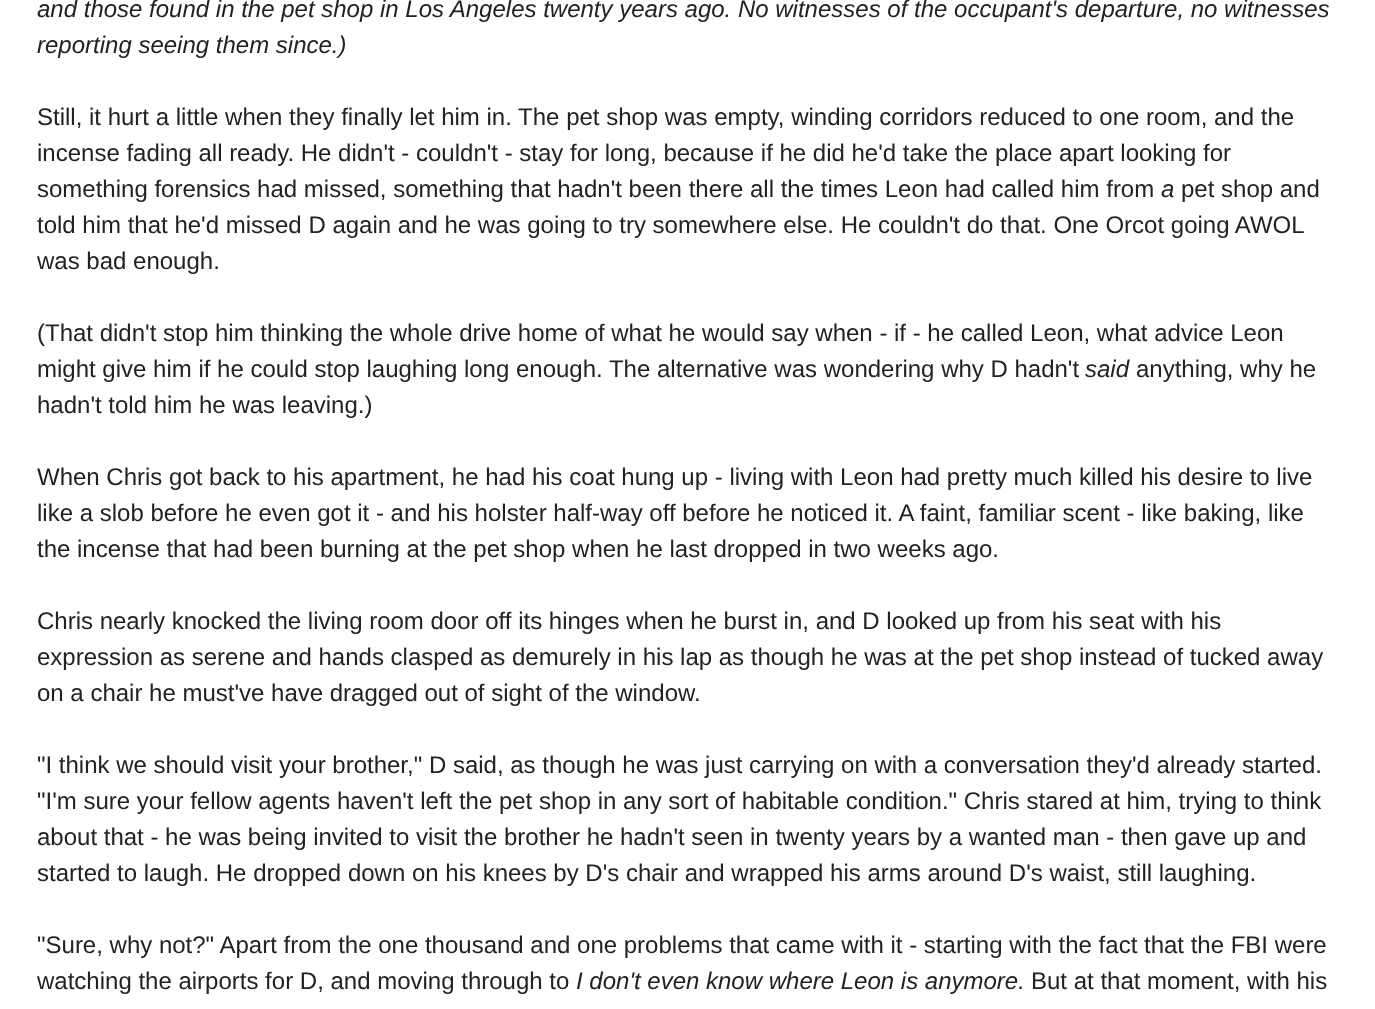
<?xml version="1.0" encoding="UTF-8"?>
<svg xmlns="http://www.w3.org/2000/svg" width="1375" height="1009">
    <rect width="100%" height="100%" fill="#FFFFFF"/>
    <text font-family="Liberation Sans" font-size="24" font-style="italic" fill="#222222">
        <tspan x="37" y="17">and those found in the pet shop in Los Angeles twenty years ago. No witnesses of the occupant's departure, no witnesses</tspan>
        <tspan x="37" y="53">reporting seeing them since.)</tspan>
    </text>
    <text font-family="Liberation Sans" font-size="24" fill="#222222">
        <tspan x="37" y="125">Still, it hurt a little when they finally let him in. The pet shop was empty, winding corridors reduced to one room, and the</tspan>
        <tspan x="37" y="161">incense fading all ready. He didn't - couldn't - stay for long, because if he did he'd take the place apart looking for</tspan>
        <tspan x="37" y="197">something forensics had missed, something that hadn't been there all the times Leon had called him from</tspan>
    </text>
    <text x="1161" y="197" font-family="Liberation Sans" font-size="24" font-style="italic" fill="#222222">a</text>
    <text x="1181" y="197" font-family="Liberation Sans" font-size="24" fill="#222222">pet shop and</text>
    <text font-family="Liberation Sans" font-size="24" fill="#222222">
        <tspan x="37" y="233">told him that he'd missed D again and he was going to try somewhere else. He couldn't do that. One Orcot going AWOL</tspan>
        <tspan x="37" y="269">was bad enough.</tspan>
    </text>
    <text font-family="Liberation Sans" font-size="24" fill="#222222">
        <tspan x="37" y="341">(That didn't stop him thinking the whole drive home of what he would say when - if - he called Leon, what advice Leon</tspan>
        <tspan x="37" y="377">might give him if he could stop laughing long enough. The alternative was wondering why D hadn't</tspan>
    </text>
    <text x="1085" y="377" font-family="Liberation Sans" font-size="24" font-style="italic" fill="#222222">said</text>
    <text x="1136" y="377" font-family="Liberation Sans" font-size="24" fill="#222222">anything, why he</text>
    <text x="37" y="413" font-family="Liberation Sans" font-size="24" fill="#222222">hadn't told him he was leaving.)</text>
    <text font-family="Liberation Sans" font-size="24" fill="#222222">
        <tspan x="37" y="485">When Chris got back to his apartment, he had his coat hung up - living with Leon had pretty much killed his desire to live</tspan>
        <tspan x="37" y="521">like a slob before he even got it - and his holster half-way off before he noticed it. A faint, familiar scent - like baking, like</tspan>
        <tspan x="37" y="557">the incense that had been burning at the pet shop when he last dropped in two weeks ago.</tspan>
    </text>
    <text font-family="Liberation Sans" font-size="24" fill="#222222">
        <tspan x="37" y="629">Chris nearly knocked the living room door off its hinges when he burst in, and D looked up from his seat with his</tspan>
        <tspan x="37" y="665">expression as serene and hands clasped as demurely in his lap as though he was at the pet shop instead of tucked away</tspan>
        <tspan x="37" y="701">on a chair he must've have dragged out of sight of the window.</tspan>
    </text>
    <text font-family="Liberation Sans" font-size="24" fill="#222222">
        <tspan x="37" y="773">"I think we should visit your brother," D said, as though he was just carrying on with a conversation they'd already started.</tspan>
        <tspan x="37" y="809">"I'm sure your fellow agents haven't left the pet shop in any sort of habitable condition." Chris stared at him, trying to think</tspan>
        <tspan x="37" y="845">about that - he was being invited to visit the brother he hadn't seen in twenty years by a wanted man - then gave up and</tspan>
        <tspan x="37" y="881">started to laugh. He dropped down on his knees by D's chair and wrapped his arms around D's waist, still laughing.</tspan>
    </text>
    <text font-family="Liberation Sans" font-size="24" fill="#222222">
        <tspan x="37" y="953">"Sure, why not?" Apart from the one thousand and one problems that came with it - starting with the fact that the FBI were</tspan>
        <tspan x="37" y="989">watching the airports for D, and moving through to</tspan>
    </text>
    <text x="576" y="989" font-family="Liberation Sans" font-size="24" font-style="italic" fill="#222222">I don't even know where Leon is anymore.</text>
    <text x="1031" y="989" font-family="Liberation Sans" font-size="24" fill="#222222">But at that moment, with his</text>
</svg>
